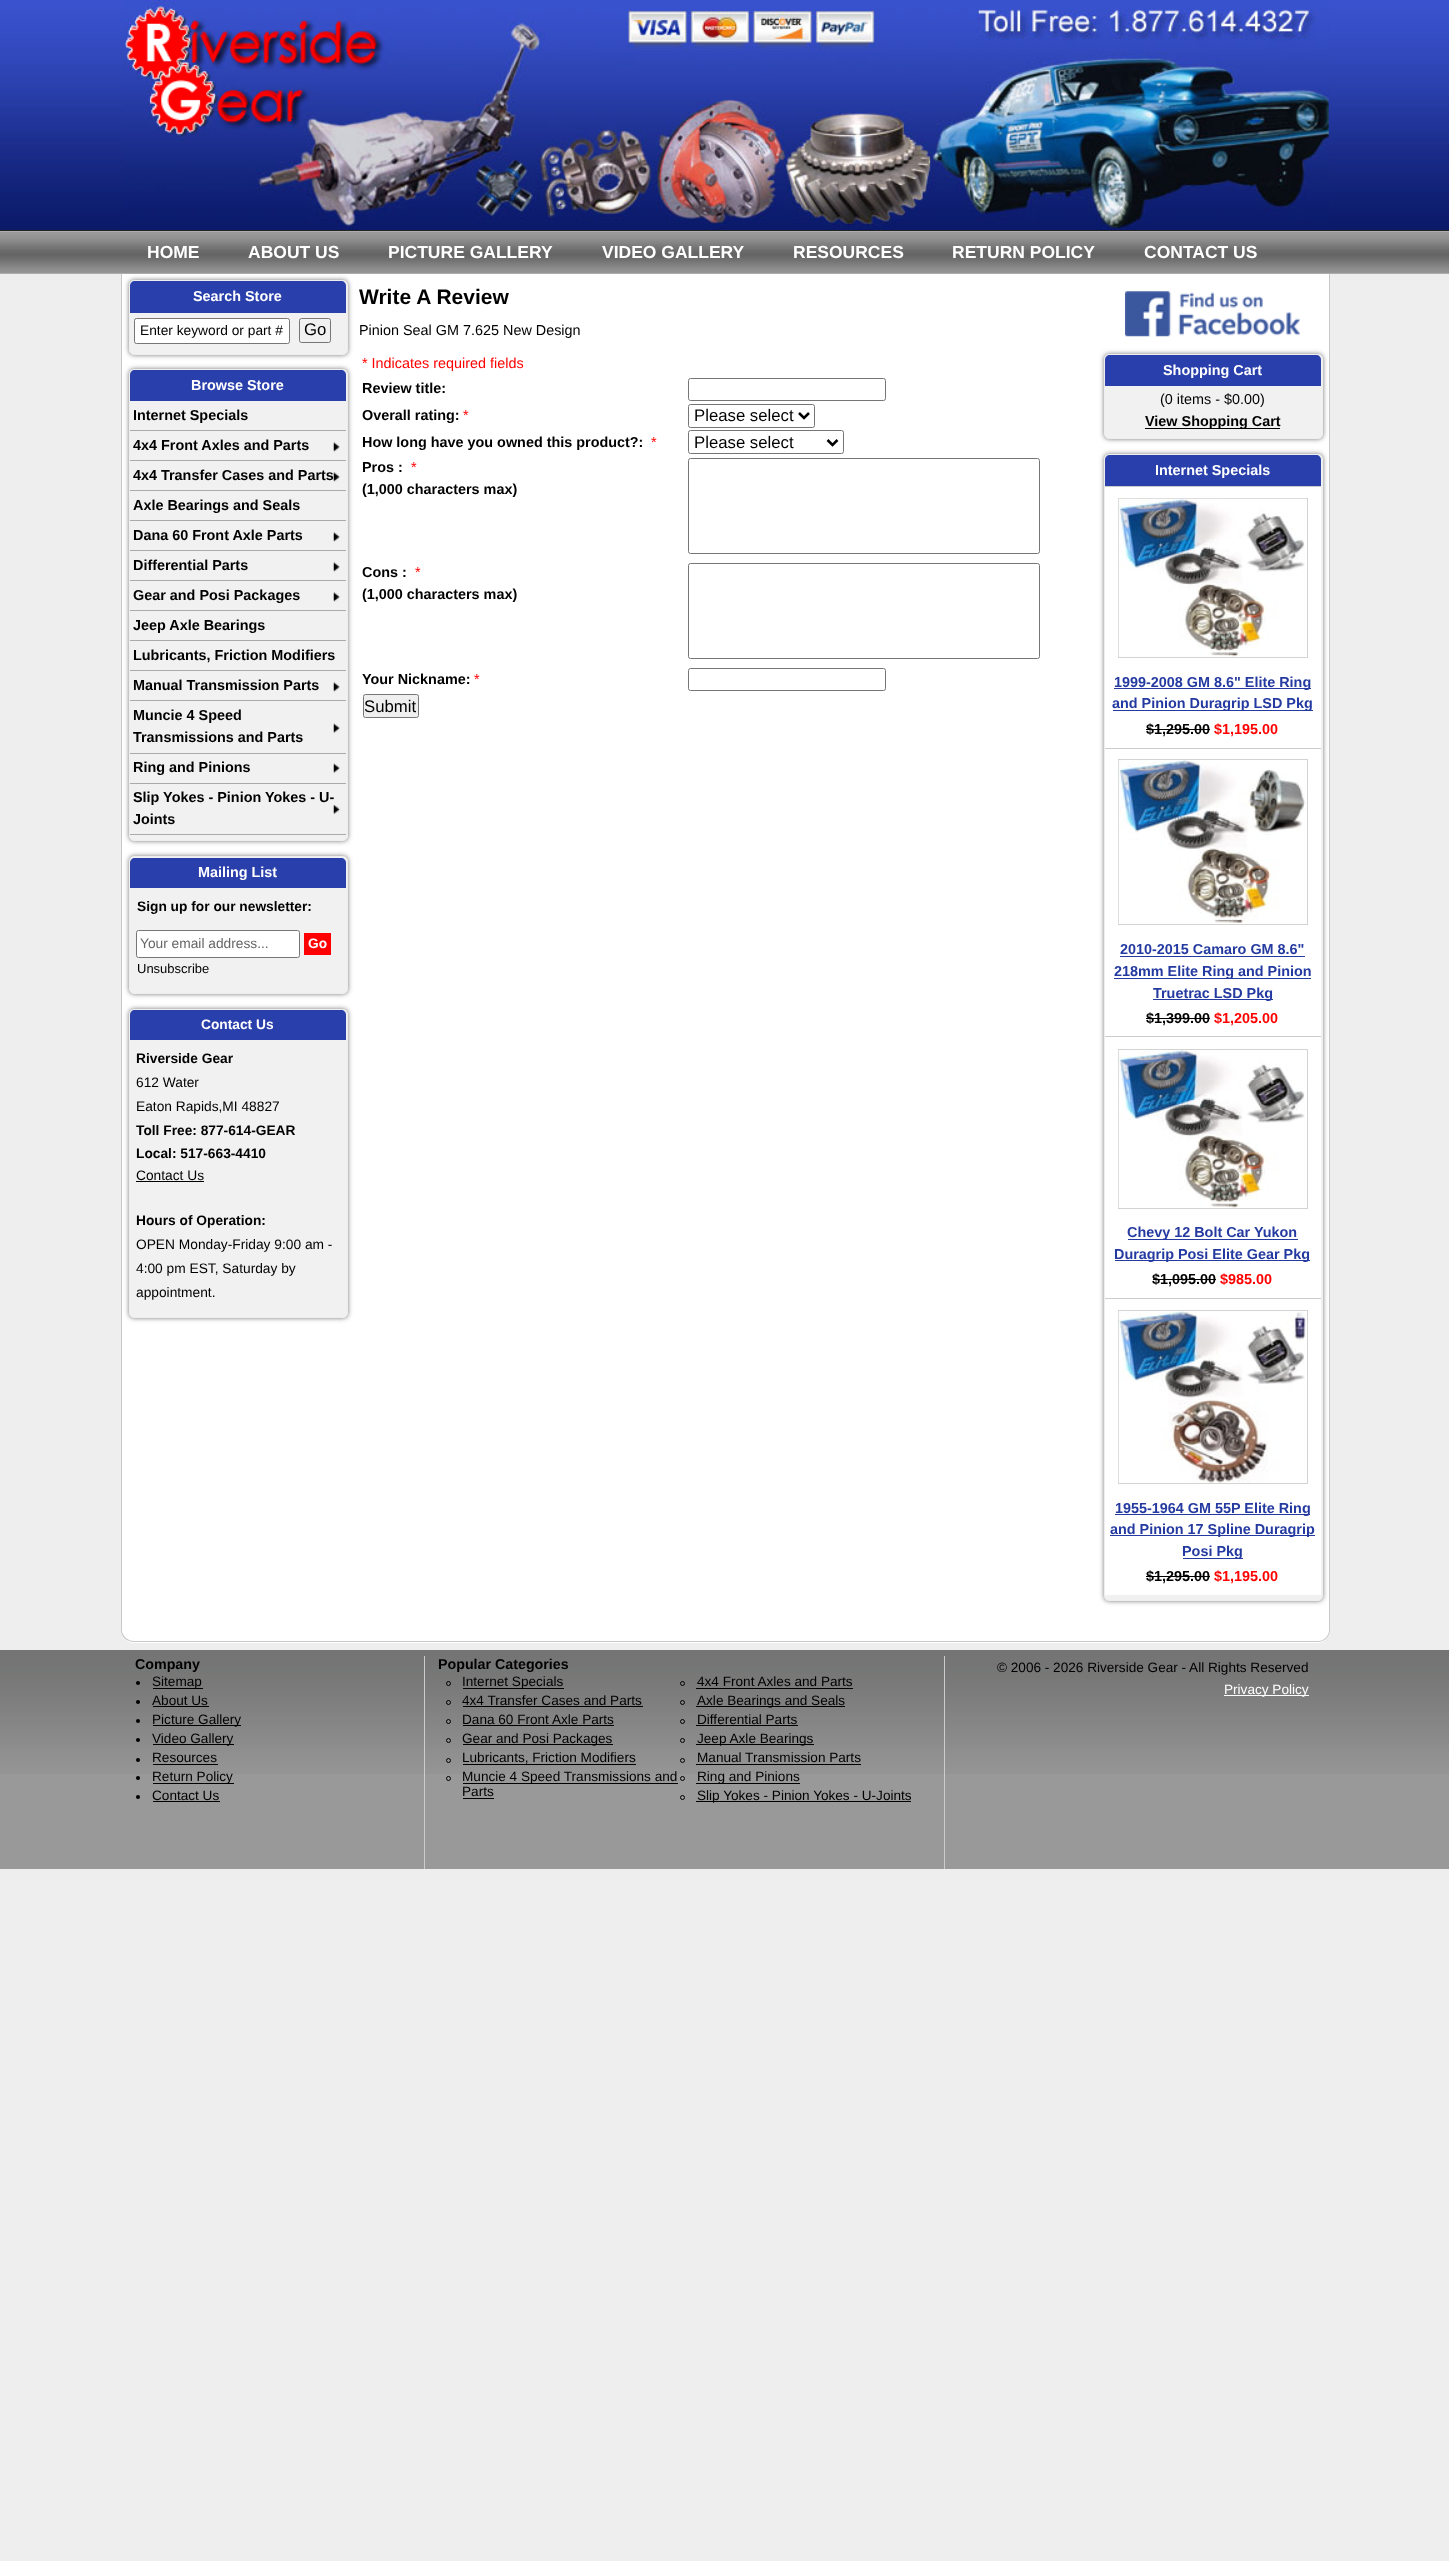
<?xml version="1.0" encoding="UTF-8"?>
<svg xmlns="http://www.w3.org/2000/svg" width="1449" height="2561">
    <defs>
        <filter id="blur1" x="-50%" y="-200%" width="200%" height="500%"><feGaussianBlur stdDeviation="2.5"/></filter>
    </defs>
    <rect width="100%" height="100%" fill="#EEEEEE"/>
    <image x="0" y="0" width="1449" height="230" href="img_01.png"/>
    <image x="123" y="0" width="1206" height="230" href="img_02.png"/>
    <image x="125" y="8" width="258" height="129" href="img_03.png"/>
    <image x="0" y="231" width="1449" height="43" href="img_04.png"/>
    <rect x="0" y="230" width="1449" height="1" fill="#232323"/>
    <text x="147" y="258" font-family="Liberation Sans" font-size="17.5" font-weight="700" fill="#FFFFFF">HOME</text>
    <text x="248" y="258" font-family="Liberation Sans" font-size="17.5" font-weight="700" fill="#FFFFFF">ABOUT US</text>
    <text x="388" y="258" font-family="Liberation Sans" font-size="17.5" font-weight="700" fill="#FFFFFF">PICTURE GALLERY</text>
    <text x="602" y="258" font-family="Liberation Sans" font-size="17.5" font-weight="700" fill="#FFFFFF">VIDEO GALLERY</text>
    <text x="793" y="258" font-family="Liberation Sans" font-size="17.5" font-weight="700" fill="#FFFFFF">RESOURCES</text>
    <text x="952" y="258" font-family="Liberation Sans" font-size="17.5" font-weight="700" fill="#FFFFFF">RETURN POLICY</text>
    <text x="1144" y="258" font-family="Liberation Sans" font-size="17.5" font-weight="700" fill="#FFFFFF">CONTACT US</text>
    <path d="M 121 274 H 1330 V 1630 C 1330 1637 1324 1643 1317 1643 H 134 C 127 1643 121 1637 121 1630 Z" fill="#FFFFFF"/>
    <path d="M 121 274 H 1330 V 1630 C 1330 1637 1324 1642 1318 1642 H 134 C 127 1642 121 1637 121 1630 Z M 122 274 H 1329 V 1630 C 1329 1636 1324 1641 1318 1641 H 134 C 128 1641 122 1636 122 1630 Z" fill="#C8C8C8" fill-rule="evenodd"/>
    <rect x="129" y="280" width="219" height="75" rx="5" fill="#777777" filter="url(#blur1)"/>
    <rect x="129.5" y="280.5" width="218" height="74" rx="4.5" fill="#F1F1F1" stroke="#EEEEEE"/>
    <path d="M 135 281 H 341 C 344 281 346 283 346 286 V 313 H 130 V 286 C 130 283 132 281 135 281 Z" fill="#293FAC"/>
    <text x="193" y="301" font-family="Liberation Sans" font-size="14.4" font-weight="700" fill="#FFFFFF">Search Store</text>
    <rect x="134.5" y="318.5" width="155" height="25" rx="2" fill="#FFFFFF" stroke="#767676"/>
    <text x="140" y="335" font-family="Liberation Sans" font-size="13.75" fill="#000000">Enter keyword or part #</text>
    <rect x="299.5" y="318.5" width="31" height="24" rx="2" fill="none" stroke="#767676"/>
    <text x="304" y="335" font-family="Liberation Sans" font-size="16.75" fill="#000000">Go</text>
    <rect x="129" y="369" width="219" height="472" rx="5" fill="#777777" filter="url(#blur1)"/>
    <rect x="129.5" y="369.5" width="218" height="471" rx="4.5" fill="#F1F1F1" stroke="#EEEEEE"/>
    <path d="M 135 370 H 341 C 344 370 346 372 346 375 V 401 H 130 V 375 C 130 372 132 370 135 370 Z" fill="#293FAC"/>
    <text x="191" y="390" font-family="Liberation Sans" font-size="14.4" font-weight="700" fill="#FFFFFF">Browse Store</text>
    <rect x="130" y="430" width="216" height="1" fill="#AAAAAA"/>
    <text x="133" y="420" font-family="Liberation Sans" font-size="14.4" font-weight="700" fill="#000000">Internet Specials</text>
    <image x="333" y="442" width="7" height="10" href="img_05.png"/>
    <rect x="130" y="460" width="216" height="1" fill="#AAAAAA"/>
    <text x="133" y="450" font-family="Liberation Sans" font-size="14.4" font-weight="700" fill="#000000">4x4 Front Axles and Parts</text>
    <image x="333" y="472" width="7" height="10" href="img_05.png"/>
    <rect x="130" y="490" width="216" height="1" fill="#AAAAAA"/>
    <text x="133" y="480" font-family="Liberation Sans" font-size="14.4" font-weight="700" fill="#000000">4x4 Transfer Cases and Parts</text>
    <rect x="130" y="520" width="216" height="1" fill="#AAAAAA"/>
    <text x="133" y="510" font-family="Liberation Sans" font-size="14.4" font-weight="700" fill="#000000">Axle Bearings and Seals</text>
    <image x="333" y="532" width="7" height="10" href="img_05.png"/>
    <rect x="130" y="550" width="216" height="1" fill="#AAAAAA"/>
    <text x="133" y="540" font-family="Liberation Sans" font-size="14.4" font-weight="700" fill="#000000">Dana 60 Front Axle Parts</text>
    <image x="333" y="562" width="7" height="10" href="img_05.png"/>
    <rect x="130" y="580" width="216" height="1" fill="#AAAAAA"/>
    <text x="133" y="570" font-family="Liberation Sans" font-size="14.4" font-weight="700" fill="#000000">Differential Parts</text>
    <image x="333" y="592" width="7" height="10" href="img_05.png"/>
    <rect x="130" y="610" width="216" height="1" fill="#AAAAAA"/>
    <text x="133" y="600" font-family="Liberation Sans" font-size="14.4" font-weight="700" fill="#000000">Gear and Posi Packages</text>
    <rect x="130" y="640" width="216" height="1" fill="#AAAAAA"/>
    <text x="133" y="630" font-family="Liberation Sans" font-size="14.4" font-weight="700" fill="#000000">Jeep Axle Bearings</text>
    <rect x="130" y="670" width="216" height="1" fill="#AAAAAA"/>
    <text x="133" y="660" font-family="Liberation Sans" font-size="14.4" font-weight="700" fill="#000000">Lubricants, Friction Modifiers</text>
    <image x="333" y="682" width="7" height="10" href="img_05.png"/>
    <rect x="130" y="700" width="216" height="1" fill="#AAAAAA"/>
    <text x="133" y="690" font-family="Liberation Sans" font-size="14.4" font-weight="700" fill="#000000">Manual Transmission Parts</text>
    <image x="333" y="723" width="7" height="10" href="img_06.png"/>
    <rect x="130" y="753" width="216" height="1" fill="#AAAAAA"/>
    <text font-family="Liberation Sans" font-size="14.4" font-weight="700" fill="#000000">
        <tspan x="133" y="720">Muncie 4 Speed</tspan>
        <tspan x="133" y="742">Transmissions and Parts</tspan>
    </text>
    <image x="333" y="763" width="7" height="10" href="img_06.png"/>
    <rect x="130" y="783" width="216" height="1" fill="#AAAAAA"/>
    <text x="133" y="772" font-family="Liberation Sans" font-size="14.4" font-weight="700" fill="#000000">Ring and Pinions</text>
    <image x="333" y="805" width="8" height="9" href="img_07.png"/>
    <rect x="130" y="834" width="216" height="1" fill="#AAAAAA"/>
    <text font-family="Liberation Sans" font-size="14.4" font-weight="700" fill="#000000">
        <tspan x="133" y="802">Slip Yokes - Pinion Yokes - U-</tspan>
        <tspan x="133" y="824">Joints</tspan>
    </text>
    <rect x="129" y="856" width="219" height="138" rx="5" fill="#777777" filter="url(#blur1)"/>
    <rect x="129.5" y="856.5" width="218" height="137" rx="4.5" fill="#F1F1F1" stroke="#EEEEEE"/>
    <path d="M 135 858 H 341 C 344 858 346 860 346 863 V 888 H 130 V 863 C 130 860 132 858 135 858 Z" fill="#293FAC"/>
    <text x="198" y="877" font-family="Liberation Sans" font-size="14.4" font-weight="700" fill="#FFFFFF">Mailing List</text>
    <text x="137" y="911" font-family="Liberation Sans" font-size="13.75" font-weight="700" fill="#000000">Sign up for our newsletter:</text>
    <rect x="136.5" y="930.5" width="163" height="27" rx="2" fill="#FFFFFF" stroke="#767676"/>
    <text x="140" y="948" font-family="Liberation Sans" font-size="13.75" fill="#666666">Your email address...</text>
    <rect x="304" y="933" width="27" height="22" fill="#FF0000"/>
    <text x="308" y="948" font-family="Liberation Sans" font-size="13.75" font-weight="700" fill="#FFFFFF">Go</text>
    <text x="137" y="973" font-family="Liberation Sans" font-size="13" fill="#000000">Unsubscribe</text>
    <rect x="129" y="1009" width="219" height="309" rx="5" fill="#777777" filter="url(#blur1)"/>
    <rect x="129.5" y="1009.5" width="218" height="308" rx="4.5" fill="#F1F1F1" stroke="#EEEEEE"/>
    <path d="M 135 1010 H 341 C 344 1010 346 1012 346 1015 V 1040 H 130 V 1015 C 130 1012 132 1010 135 1010 Z" fill="#293FAC"/>
    <text x="201" y="1029" font-family="Liberation Sans" font-size="13.75" font-weight="700" fill="#FFFFFF">Contact Us</text>
    <text x="136" y="1063" font-family="Liberation Sans" font-size="13.75" font-weight="700" fill="#000000">Riverside Gear</text>
    <text font-family="Liberation Sans" font-size="13.75" fill="#000000">
        <tspan x="136" y="1087">612 Water</tspan>
        <tspan x="136" y="1111">Eaton Rapids,MI 48827</tspan>
    </text>
    <text font-family="Liberation Sans" font-size="13.75" font-weight="700" fill="#000000">
        <tspan x="136" y="1135">Toll Free: 877-614-GEAR</tspan>
        <tspan x="136" y="1158">Local: 517-663-4410</tspan>
    </text>
    <text x="136" y="1180" font-family="Liberation Sans" font-size="13.75" fill="#000000">Contact Us</text>
    <rect x="136" y="1181" width="68" height="1" fill="#000000"/>
    <text x="136" y="1225" font-family="Liberation Sans" font-size="13.75" font-weight="700" fill="#000000">Hours of Operation:</text>
    <text font-family="Liberation Sans" font-size="13.75" fill="#000000">
        <tspan x="136" y="1249">OPEN Monday-Friday 9:00 am -</tspan>
        <tspan x="136" y="1273">4:00 pm EST, Saturday by</tspan>
        <tspan x="136" y="1297">appointment.</tspan>
    </text>
    <text x="359" y="304" font-family="Liberation Sans" font-size="21" font-weight="700" fill="#000000">Write A Review</text>
    <text x="359" y="335" font-family="Liberation Sans" font-size="14.4" fill="#000000">Pinion Seal GM 7.625 New Design</text>
    <text x="362" y="368" font-family="Liberation Sans" font-size="14.4" fill="#FF0000">* Indicates required fields</text>
    <text x="362" y="393" font-family="Liberation Sans" font-size="14.4" font-weight="700" fill="#000000">Review title:</text>
    <rect x="688.5" y="378.5" width="197" height="22" rx="2" fill="none" stroke="#767676"/>
    <text x="362" y="420" font-family="Liberation Sans" font-size="14.4" font-weight="700" fill="#000000">Overall rating:</text>
    <text x="463" y="420" font-family="Liberation Sans" font-size="14.4" fill="#FF0000">*</text>
    <rect x="688.5" y="404.5" width="126" height="23" rx="2" fill="none" stroke="#767676"/>
    <path d="M 799 413 L 804 418 L 809 413" fill="none" stroke="#000000" stroke-width="2.5"/>
    <text x="694" y="421" font-family="Liberation Sans" font-size="16.75" fill="#000000">Please select</text>
    <text x="362" y="447" font-family="Liberation Sans" font-size="14.4" font-weight="700" fill="#000000">How long have you owned this product?:</text>
    <text x="651" y="447" font-family="Liberation Sans" font-size="14.4" fill="#FF0000">*</text>
    <rect x="688.5" y="430.5" width="155" height="23" rx="2" fill="none" stroke="#767676"/>
    <path d="M 827.5 440 L 832.5 445 L 837.5 440" fill="none" stroke="#000000" stroke-width="2.5"/>
    <text x="694" y="448" font-family="Liberation Sans" font-size="16.75" fill="#000000">Please select</text>
    <text x="362" y="472" font-family="Liberation Sans" font-size="14.4" font-weight="700" fill="#000000">Pros :</text>
    <text x="411" y="472" font-family="Liberation Sans" font-size="14.4" fill="#FF0000">*</text>
    <text x="362" y="494" font-family="Liberation Sans" font-size="14.4" font-weight="700" fill="#000000">(1,000 characters max)</text>
    <rect x="688.5" y="458.5" width="351" height="95" rx="2" fill="none" stroke="#767676"/>
    <text x="362" y="577" font-family="Liberation Sans" font-size="14.4" font-weight="700" fill="#000000">Cons :</text>
    <text x="415" y="577" font-family="Liberation Sans" font-size="14.4" fill="#FF0000">*</text>
    <text x="362" y="599" font-family="Liberation Sans" font-size="14.4" font-weight="700" fill="#000000">(1,000 characters max)</text>
    <rect x="688.5" y="563.5" width="351" height="95" rx="2" fill="none" stroke="#767676"/>
    <text x="362" y="684" font-family="Liberation Sans" font-size="14.4" font-weight="700" fill="#000000">Your Nickname:</text>
    <text x="474" y="684" font-family="Liberation Sans" font-size="14.4" fill="#FF0000">*</text>
    <rect x="688.5" y="668.5" width="197" height="22" rx="2" fill="none" stroke="#767676"/>
    <rect x="363.5" y="694.5" width="55" height="23" rx="2" fill="#EFEFEF" stroke="#767676"/>
    <text x="364" y="712" font-family="Liberation Sans" font-size="16.75" fill="#000000">Submit</text>
    <image x="1125" y="291" width="175" height="46" href="img_08.png"/>
    <rect x="1104" y="354" width="219" height="85" rx="5" fill="#777777" filter="url(#blur1)"/>
    <rect x="1104.5" y="354.5" width="218" height="84" rx="4.5" fill="#F1F1F1" stroke="#EEEEEE"/>
    <path d="M 1110 355 H 1316 C 1319 355 1321 357 1321 360 V 386 H 1105 V 360 C 1105 357 1107 355 1110 355 Z" fill="#293FAC"/>
    <text x="1163" y="375" font-family="Liberation Sans" font-size="14.4" font-weight="700" fill="#FFFFFF">Shopping Cart</text>
    <text x="1160" y="404" font-family="Liberation Sans" font-size="14.4" fill="#000000">(0 items - $0.00)</text>
    <rect x="1145" y="428" width="135" height="1" fill="#000000"/>
    <text x="1145" y="426" font-family="Liberation Sans" font-size="14.4" font-weight="700" fill="#000000">View Shopping Cart</text>
    <rect x="1104" y="454" width="219" height="1147" rx="5" fill="#777777" filter="url(#blur1)"/>
    <rect x="1104.5" y="454.5" width="218" height="1146" rx="4.5" fill="#F1F1F1" stroke="#EEEEEE"/>
    <path d="M 1110 455 H 1316 C 1319 455 1321 457 1321 460 V 486 H 1105 V 460 C 1105 457 1107 455 1110 455 Z" fill="#293FAC"/>
    <text x="1155" y="475" font-family="Liberation Sans" font-size="14.4" font-weight="700" fill="#FFFFFF">Internet Specials</text>
    <rect x="1105" y="487" width="216" height="261" fill="#FFFFFF"/>
    <rect x="1105" y="486" width="216" height="1" fill="#CCCCCC"/>
    <rect x="1118.5" y="498.5" width="189" height="159" fill="none" stroke="#D3D3D3"/>
    <image x="1118" y="498" width="188" height="159" href="img_09.png"/>
    <rect x="1114" y="688" width="197" height="1" fill="#243AA0"/>
    <text x="1114" y="687" font-family="Liberation Sans" font-size="14.4" font-weight="700" fill="#243AA0">1999-2008 GM 8.6" Elite Ring</text>
    <rect x="1113" y="710" width="200" height="1" fill="#243AA0"/>
    <text x="1112" y="708" font-family="Liberation Sans" font-size="14.4" font-weight="700" fill="#243AA0">and Pinion Duragrip LSD Pkg</text>
    <text x="1146" y="734" font-family="Liberation Sans" font-size="14.4" font-weight="700" fill="#000000">$1,295.00</text>
    <rect x="1146" y="729" width="64" height="1" fill="#000000"/>
    <text x="1214" y="734" font-family="Liberation Sans" font-size="14.4" font-weight="700" fill="#FF0000">$1,195.00</text>
    <rect x="1105" y="749" width="216" height="287" fill="#FFFFFF"/>
    <rect x="1105" y="748" width="216" height="1" fill="#CCCCCC"/>
    <rect x="1118.5" y="759.5" width="189" height="165" fill="none" stroke="#D3D3D3"/>
    <image x="1118" y="760" width="188" height="164" href="img_10.png"/>
    <text x="1120" y="954" font-family="Liberation Sans" font-size="14.4" font-weight="700" fill="#243AA0">2010-2015 Camaro GM 8.6"</text>
    <rect x="1120" y="956" width="185" height="1" fill="#243AA0"/>
    <rect x="1114" y="978" width="197" height="1" fill="#243AA0"/>
    <text x="1114" y="976" font-family="Liberation Sans" font-size="14.4" font-weight="700" fill="#243AA0">218mm Elite Ring and Pinion</text>
    <rect x="1153" y="999" width="120" height="1" fill="#243AA0"/>
    <text x="1153" y="998" font-family="Liberation Sans" font-size="14.4" font-weight="700" fill="#243AA0">Truetrac LSD Pkg</text>
    <text x="1146" y="1023" font-family="Liberation Sans" font-size="14.4" font-weight="700" fill="#000000">$1,399.00</text>
    <rect x="1146" y="1018" width="64" height="1" fill="#000000"/>
    <text x="1214" y="1023" font-family="Liberation Sans" font-size="14.4" font-weight="700" fill="#FF0000">$1,205.00</text>
    <rect x="1105" y="1037" width="216" height="261" fill="#FFFFFF"/>
    <rect x="1105" y="1036" width="216" height="1" fill="#CCCCCC"/>
    <rect x="1118.5" y="1049.5" width="189" height="159" fill="none" stroke="#D3D3D3"/>
    <image x="1118" y="1050" width="187" height="158" href="img_11.png"/>
    <rect x="1128" y="1239" width="170" height="1" fill="#243AA0"/>
    <text x="1127" y="1237" font-family="Liberation Sans" font-size="14.4" font-weight="700" fill="#243AA0">Chevy 12 Bolt Car Yukon</text>
    <rect x="1115" y="1260" width="195" height="1" fill="#243AA0"/>
    <text x="1114" y="1259" font-family="Liberation Sans" font-size="14.4" font-weight="700" fill="#243AA0">Duragrip Posi Elite Gear Pkg</text>
    <text x="1152" y="1284" font-family="Liberation Sans" font-size="14.4" font-weight="700" fill="#000000">$1,095.00</text>
    <rect x="1153" y="1279" width="63" height="1" fill="#000000"/>
    <text x="1220" y="1284" font-family="Liberation Sans" font-size="14.4" font-weight="700" fill="#FF0000">$985.00</text>
    <rect x="1105" y="1299" width="216" height="296" fill="#FFFFFF"/>
    <rect x="1105" y="1298" width="216" height="1" fill="#CCCCCC"/>
    <rect x="1118.5" y="1310.5" width="189" height="173" fill="none" stroke="#D3D3D3"/>
    <image x="1118" y="1311" width="188" height="172" href="img_12.png"/>
    <rect x="1115" y="1514" width="195" height="1" fill="#243AA0"/>
    <text x="1115" y="1513" font-family="Liberation Sans" font-size="14.4" font-weight="700" fill="#243AA0">1955-1964 GM 55P Elite Ring</text>
    <rect x="1110" y="1535" width="205" height="1" fill="#243AA0"/>
    <text x="1110" y="1534" font-family="Liberation Sans" font-size="14.4" font-weight="700" fill="#243AA0">and Pinion 17 Spline Duragrip</text>
    <rect x="1183" y="1558" width="60" height="1" fill="#243AA0"/>
    <text x="1182" y="1556" font-family="Liberation Sans" font-size="14.4" font-weight="700" fill="#243AA0">Posi Pkg</text>
    <text x="1146" y="1581" font-family="Liberation Sans" font-size="14.4" font-weight="700" fill="#000000">$1,295.00</text>
    <rect x="1146" y="1576" width="64" height="1" fill="#000000"/>
    <text x="1214" y="1581" font-family="Liberation Sans" font-size="14.4" font-weight="700" fill="#FF0000">$1,195.00</text>
    <rect x="0" y="1774" width="1449" height="95" fill="#999999"/>
    <image x="0" y="1650" width="1449" height="124" href="img_13.png"/>
    <rect x="424" y="1656" width="1" height="213" fill="#CCCCCC"/>
    <text x="135" y="1669" font-family="Liberation Sans" font-size="14.25" font-weight="700" fill="#000000">Company</text>
    <circle cx="138" cy="1683" r="2" fill="#000000"/>
    <rect x="153" y="1688" width="50" height="1" fill="#000000"/>
    <text x="152" y="1686" font-family="Liberation Sans" font-size="13.6" fill="#000000">Sitemap</text>
    <circle cx="138" cy="1702" r="2" fill="#000000"/>
    <text x="152" y="1705" font-family="Liberation Sans" font-size="13.6" fill="#000000">About Us</text>
    <rect x="153" y="1706" width="56" height="1" fill="#000000"/>
    <circle cx="138" cy="1721" r="2" fill="#000000"/>
    <rect x="153" y="1725" width="88" height="1" fill="#000000"/>
    <text x="152" y="1724" font-family="Liberation Sans" font-size="13.6" fill="#000000">Picture Gallery</text>
    <circle cx="138" cy="1740" r="2" fill="#000000"/>
    <rect x="153" y="1744" width="81" height="1" fill="#000000"/>
    <text x="152" y="1743" font-family="Liberation Sans" font-size="13.6" fill="#000000">Video Gallery</text>
    <circle cx="138" cy="1760" r="2" fill="#000000"/>
    <text x="152" y="1762" font-family="Liberation Sans" font-size="13.6" fill="#000000">Resources</text>
    <rect x="153" y="1764" width="65" height="1" fill="#000000"/>
    <circle cx="138" cy="1778" r="2" fill="#000000"/>
    <rect x="153" y="1783" width="81" height="1" fill="#000000"/>
    <text x="152" y="1781" font-family="Liberation Sans" font-size="13.6" fill="#000000">Return Policy</text>
    <circle cx="138" cy="1797" r="2" fill="#000000"/>
    <text x="152" y="1800" font-family="Liberation Sans" font-size="13.6" fill="#000000">Contact Us</text>
    <rect x="153" y="1801" width="67" height="1" fill="#000000"/>
    <rect x="944" y="1656" width="1" height="213" fill="#CCCCCC"/>
    <text x="438" y="1669" font-family="Liberation Sans" font-size="14.25" font-weight="700" fill="#000000">Popular Categories</text>
    <circle cx="448.5" cy="1683.5" r="2" fill="none" stroke="#000000"/>
    <rect x="463" y="1688" width="101" height="1" fill="#000000"/>
    <text x="462" y="1686" font-family="Liberation Sans" font-size="13.6" fill="#000000">Internet Specials</text>
    <circle cx="682.5" cy="1683.5" r="2" fill="none" stroke="#000000"/>
    <text x="697" y="1686" font-family="Liberation Sans" font-size="13.6" fill="#000000">4x4 Front Axles and Parts</text>
    <rect x="696" y="1688" width="157" height="1" fill="#000000"/>
    <circle cx="448.5" cy="1702.5" r="2" fill="none" stroke="#000000"/>
    <text x="462" y="1705" font-family="Liberation Sans" font-size="13.6" fill="#000000">4x4 Transfer Cases and Parts</text>
    <rect x="463" y="1706" width="180" height="1" fill="#000000"/>
    <circle cx="682.5" cy="1702.5" r="2" fill="none" stroke="#000000"/>
    <rect x="696" y="1706" width="149" height="1" fill="#000000"/>
    <text x="697" y="1705" font-family="Liberation Sans" font-size="13.6" fill="#000000">Axle Bearings and Seals</text>
    <circle cx="448.5" cy="1721.5" r="2" fill="none" stroke="#000000"/>
    <text x="462" y="1724" font-family="Liberation Sans" font-size="13.6" fill="#000000">Dana 60 Front Axle Parts</text>
    <rect x="463" y="1725" width="151" height="1" fill="#000000"/>
    <circle cx="682.5" cy="1721.5" r="2" fill="none" stroke="#000000"/>
    <text x="697" y="1724" font-family="Liberation Sans" font-size="13.6" fill="#000000">Differential Parts</text>
    <rect x="696" y="1725" width="102" height="1" fill="#000000"/>
    <circle cx="448.5" cy="1740.5" r="2" fill="none" stroke="#000000"/>
    <rect x="463" y="1744" width="150" height="1" fill="#000000"/>
    <text x="462" y="1743" font-family="Liberation Sans" font-size="13.6" fill="#000000">Gear and Posi Packages</text>
    <circle cx="682.5" cy="1740.5" r="2" fill="none" stroke="#000000"/>
    <rect x="696" y="1744" width="118" height="1" fill="#000000"/>
    <text x="697" y="1743" font-family="Liberation Sans" font-size="13.6" fill="#000000">Jeep Axle Bearings</text>
    <circle cx="448.5" cy="1760.5" r="2" fill="none" stroke="#000000"/>
    <text x="462" y="1762" font-family="Liberation Sans" font-size="13.6" fill="#000000">Lubricants, Friction Modifiers</text>
    <rect x="463" y="1764" width="173" height="1" fill="#000000"/>
    <circle cx="682.5" cy="1760.5" r="2" fill="none" stroke="#000000"/>
    <text x="697" y="1762" font-family="Liberation Sans" font-size="13.6" fill="#000000">Manual Transmission Parts</text>
    <rect x="696" y="1764" width="165" height="1" fill="#000000"/>
    <circle cx="448.5" cy="1778.5" r="2" fill="none" stroke="#000000"/>
    <rect x="463" y="1783" width="215" height="1" fill="#000000"/>
    <text font-family="Liberation Sans" font-size="13.6" fill="#000000">
        <tspan x="462" y="1781">Muncie 4 Speed Transmissions and</tspan>
        <tspan x="462" y="1796">Parts</tspan>
    </text>
    <rect x="463" y="1798" width="31" height="1" fill="#000000"/>
    <circle cx="682.5" cy="1778.5" r="2" fill="none" stroke="#000000"/>
    <rect x="696" y="1783" width="104" height="1" fill="#000000"/>
    <text x="697" y="1781" font-family="Liberation Sans" font-size="13.6" fill="#000000">Ring and Pinions</text>
    <circle cx="682.5" cy="1797.5" r="2" fill="none" stroke="#000000"/>
    <rect x="696" y="1801" width="215" height="1" fill="#000000"/>
    <text x="697" y="1800" font-family="Liberation Sans" font-size="13.6" fill="#000000">Slip Yokes - Pinion Yokes - U-Joints</text>
    <text x="997" y="1672" font-family="Liberation Sans" font-size="13.6" fill="#000000">© 2006 - 2026 Riverside Gear - All Rights Reserved</text>
    <rect x="1224" y="1695" width="85" height="1" fill="#FFFFFF"/>
    <text x="1224" y="1694" font-family="Liberation Sans" font-size="13.6" fill="#FFFFFF">Privacy Policy</text>
</svg>
